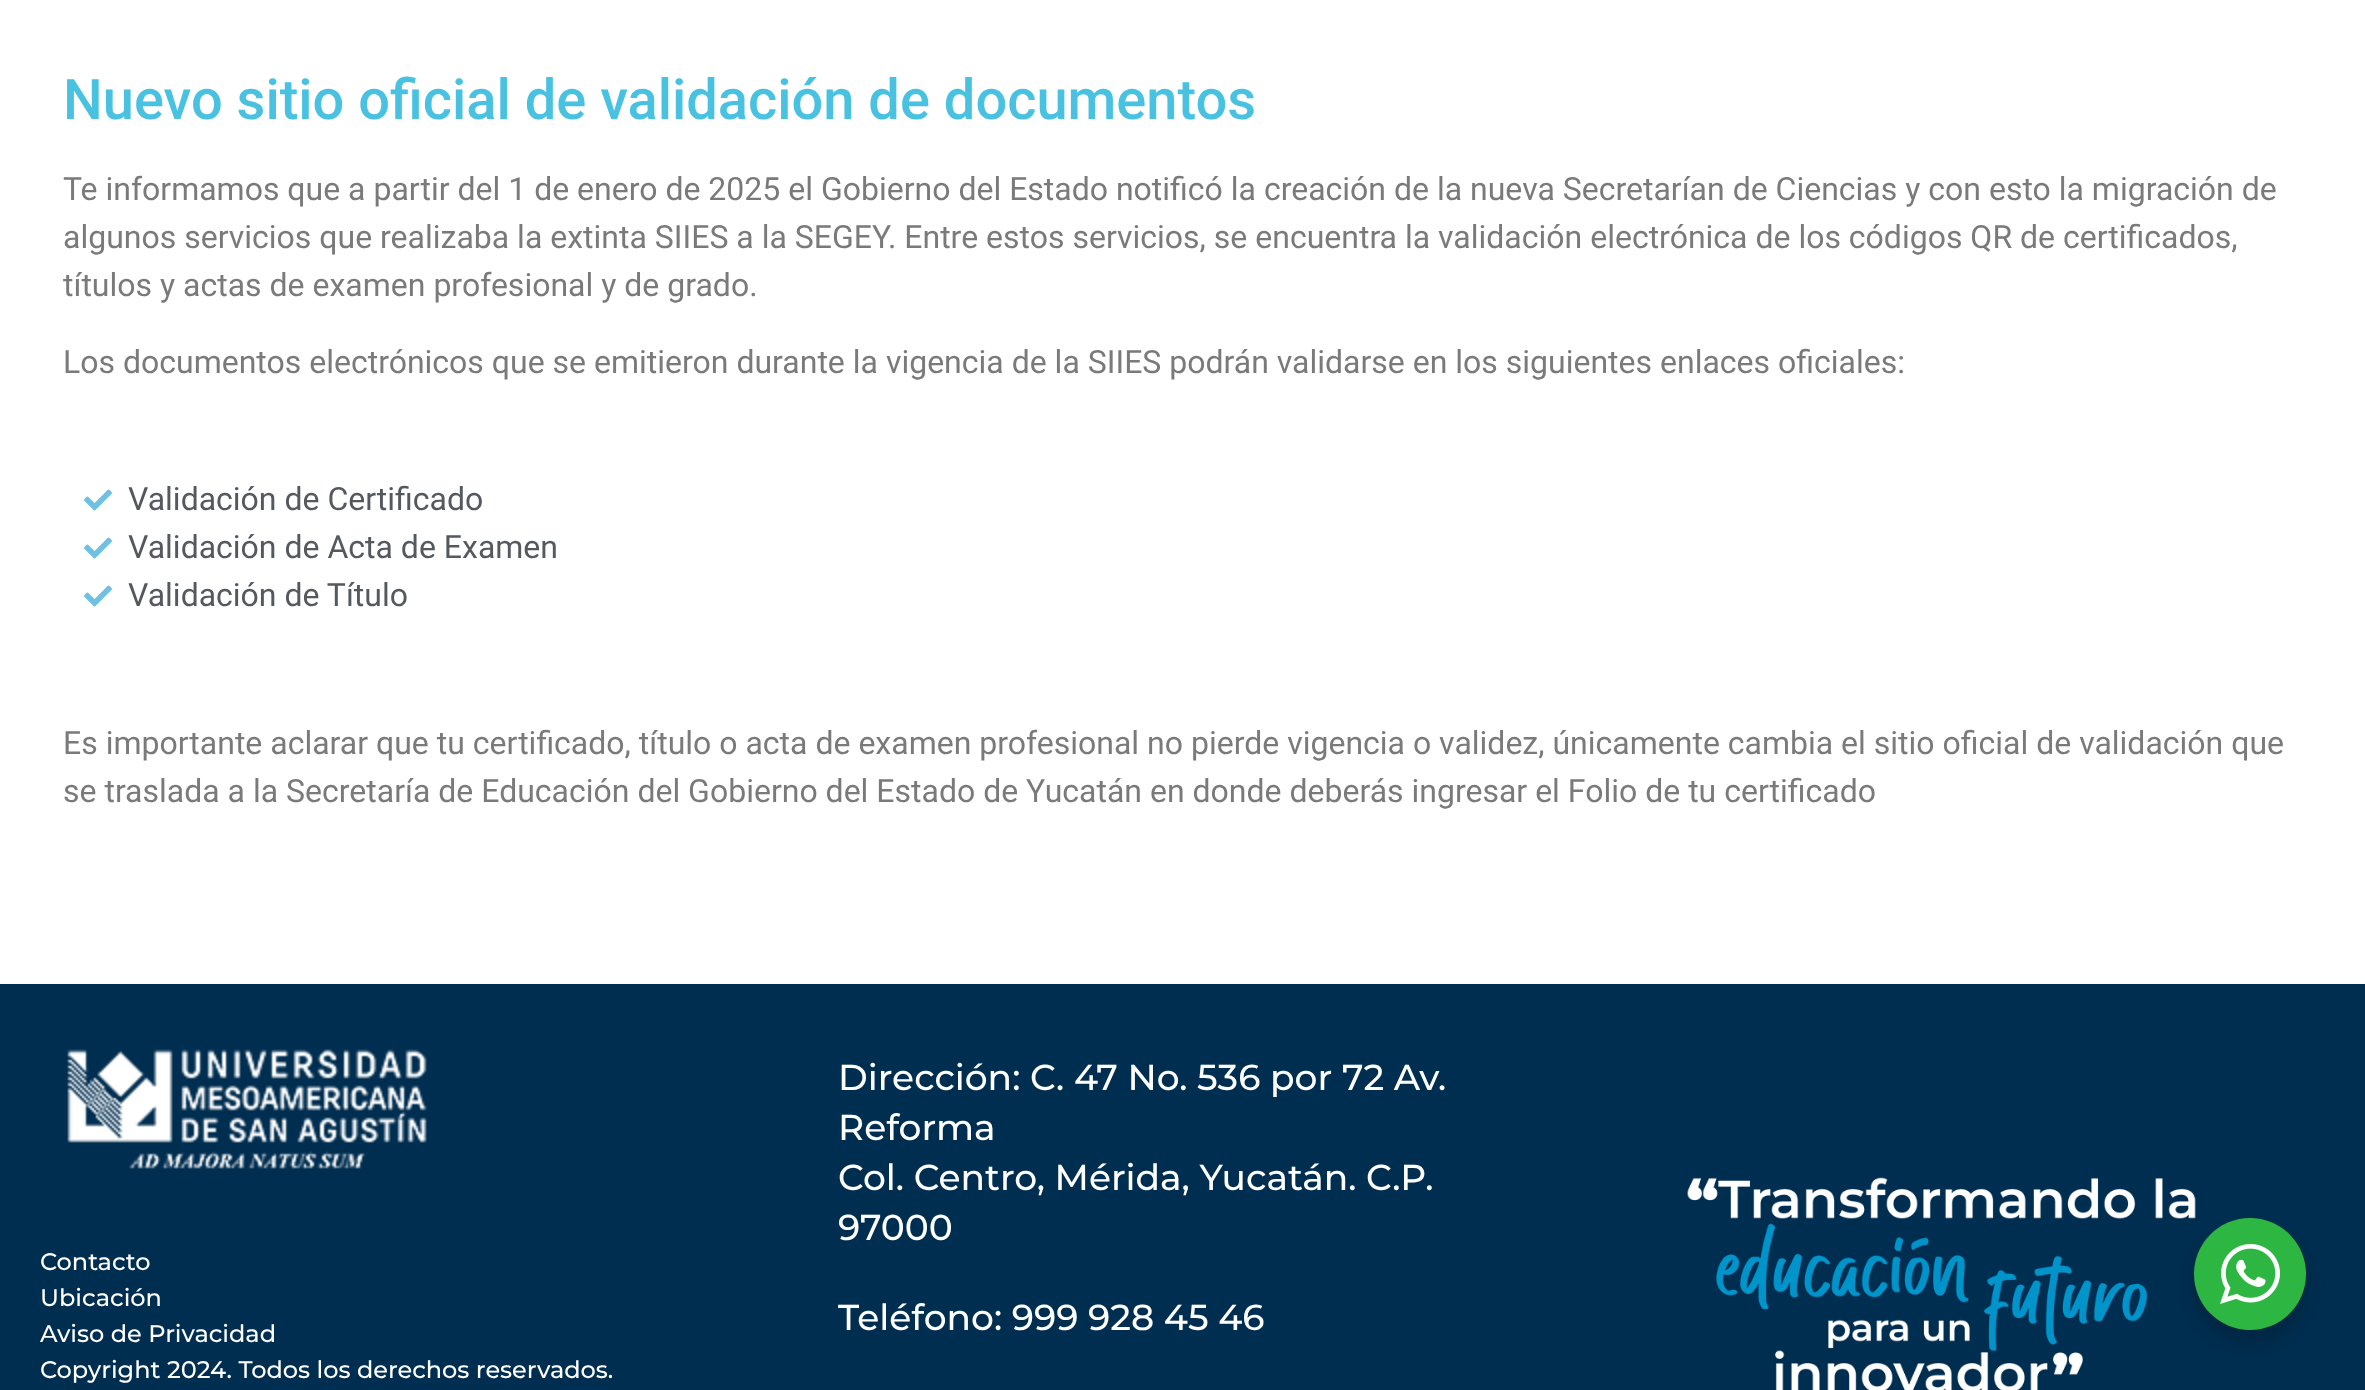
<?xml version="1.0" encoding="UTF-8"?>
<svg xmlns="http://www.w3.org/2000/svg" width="2365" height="1390">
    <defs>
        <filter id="blur1" x="-50%" y="-200%" width="200%" height="500%"><feGaussianBlur stdDeviation="8"/></filter>
    </defs>
    <rect width="100%" height="100%" fill="#FFFFFF"/>
    <text x="63" y="119" font-family="Roboto" font-size="56" font-weight="500" fill="#48C2E0">Nuevo sitio oficial de validación de documentos</text>
    <text font-family="Roboto" font-size="32" fill="#7A7A7A">
        <tspan x="63" y="200">Te informamos que a partir del 1 de enero de 2025 el Gobierno del Estado notificó la creación de la nueva Secretarían de Ciencias y con esto la migración de</tspan>
        <tspan x="63" y="248">algunos servicios que realizaba la extinta SIIES a la SEGEY. Entre estos servicios, se encuentra la validación electrónica de los códigos QR de certificados,</tspan>
        <tspan x="63" y="296">títulos y actas de examen profesional y de grado.</tspan>
    </text>
    <text x="63" y="373" font-family="Roboto" font-size="32" fill="#7A7A7A">Los documentos electrónicos que se emitieron durante la vigencia de la SIIES podrán validarse en los siguientes enlaces oficiales:</text>
    <image x="84" y="489" width="28" height="22" href="img_01.png"/>
    <text x="128" y="510" font-family="Roboto" font-size="32" fill="#54595F">Validación de Certificado</text>
    <image x="84" y="537" width="28" height="22" href="img_01.png"/>
    <text x="128" y="558" font-family="Roboto" font-size="32" fill="#54595F">Validación de Acta de Examen</text>
    <image x="84" y="585" width="28" height="22" href="img_01.png"/>
    <text x="128" y="606" font-family="Roboto" font-size="32" fill="#54595F">Validación de Título</text>
    <text font-family="Roboto" font-size="32" fill="#7A7A7A">
        <tspan x="63" y="754">Es importante aclarar que tu certificado, título o acta de examen profesional no pierde vigencia o validez, únicamente cambia el sitio oficial de validación que</tspan>
        <tspan x="63" y="802">se traslada a la Secretaría de Educación del Gobierno del Estado de Yucatán en donde deberás ingresar el Folio de tu certificado</tspan>
    </text>
    <rect x="0" y="984" width="2365" height="406" fill="#002E50"/>
    <image x="67" y="1049" width="360" height="120" href="img_02.png"/>
    <text font-family="Montserrat" font-size="24" font-weight="500" fill="#FFFFFF">
        <tspan x="40" y="1270">Contacto</tspan>
        <tspan x="40" y="1306">Ubicación</tspan>
        <tspan x="40" y="1342">Aviso de Privacidad</tspan>
        <tspan x="40" y="1378">Copyright 2024. Todos los derechos reservados.</tspan>
    </text>
    <text font-family="Montserrat" font-size="36" font-weight="500" fill="#FFFFFF">
        <tspan x="838" y="1090">Dirección: C. 47 No. 536 por 72 Av.</tspan>
        <tspan x="838" y="1140">Reforma</tspan>
        <tspan x="838" y="1190">Col. Centro, Mérida, Yucatán. C.P.</tspan>
        <tspan x="838" y="1240">97000</tspan>
    </text>
    <text x="838" y="1330" font-family="Montserrat" font-size="36" font-weight="500" fill="#FFFFFF">Teléfono: 999 928 45 46</text>
    <image x="1687" y="1177" width="509" height="213" href="img_03.png"/>
    <rect x="2190" y="1226" width="120" height="120" rx="60" fill="#000000" fill-opacity="0.14" filter="url(#blur1)"/>
    <circle cx="2250" cy="1274" r="56" fill="#2DB742"/>
    <image x="2220" y="1244" width="60" height="60" href="img_04.png"/>
</svg>
